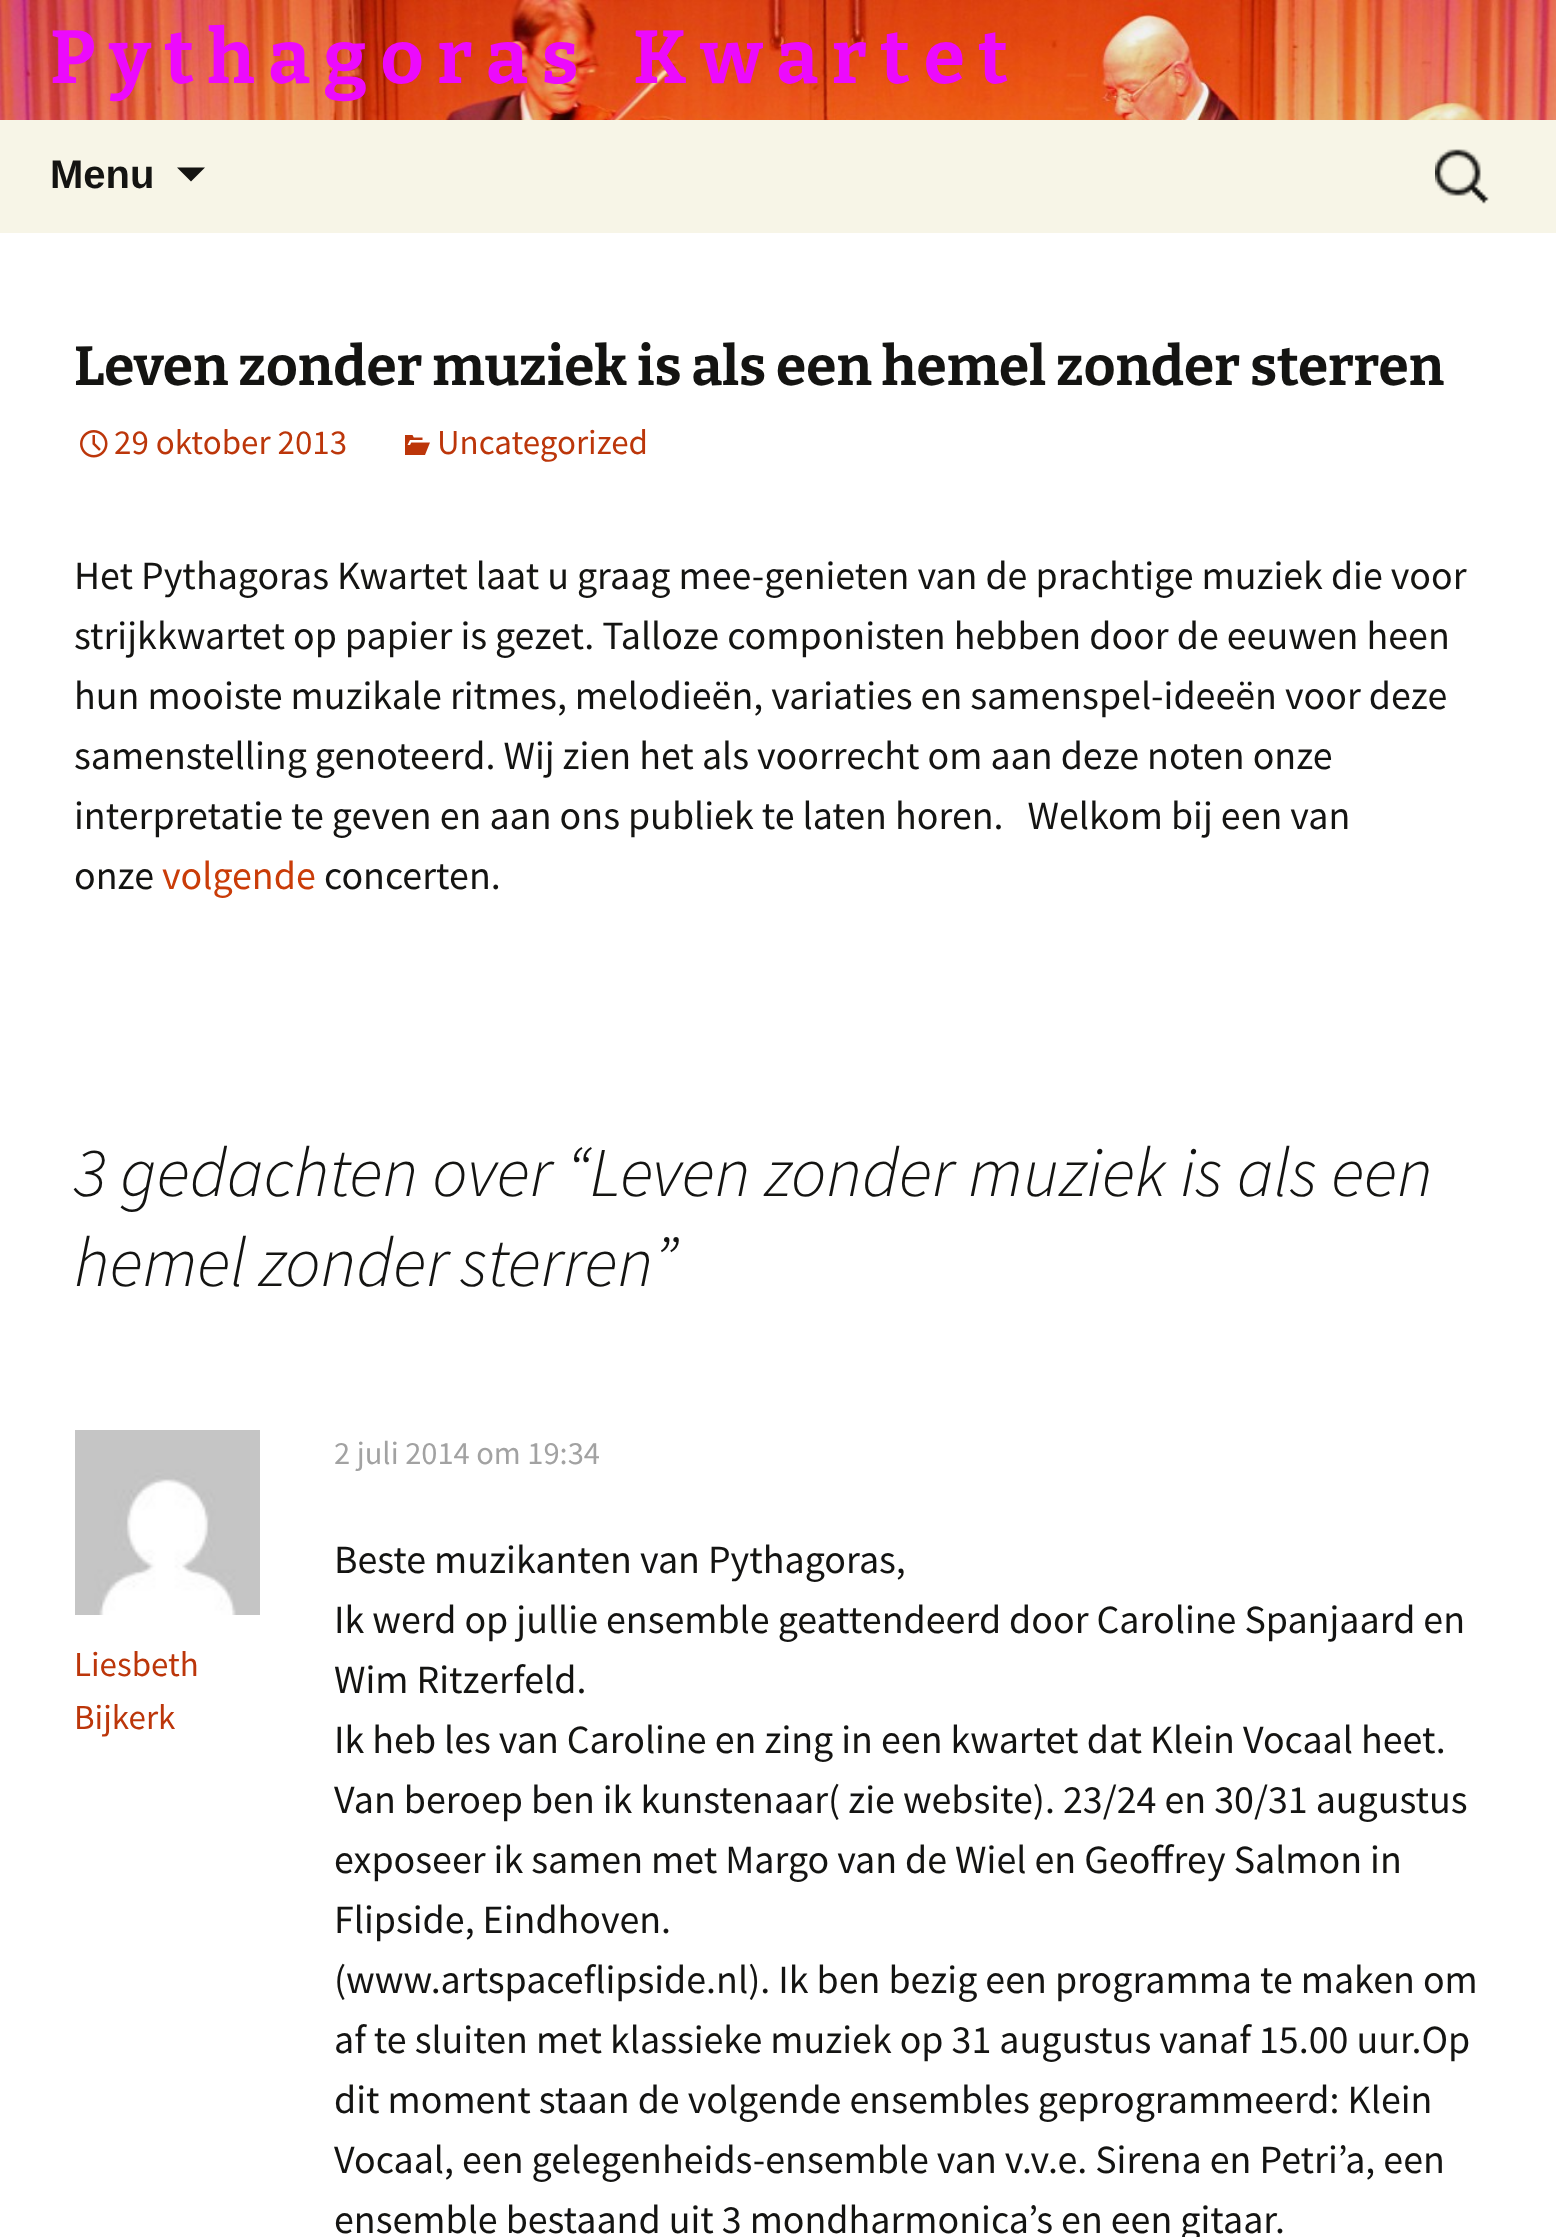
<?xml version="1.0" encoding="UTF-8"?>
<svg xmlns="http://www.w3.org/2000/svg" width="1556" height="2237">
    <rect width="100%" height="100%" fill="#FFFFFF"/>
    <image x="0" y="0" width="1556" height="120" href="img_01.png"/>
    <text x="50" y="83" font-family="Bitter" font-size="75" font-weight="100" fill="#EC0AFC">P y t h a g o r a s</text>
    <text x="633" y="83" font-family="Bitter" font-size="75" font-weight="100" fill="#EC0AFC">K w a r t e t</text>
    <rect x="0" y="120" width="1556" height="113" fill="#F7F5E7"/>
    <text x="50" y="188" font-family="Liberation Sans" font-size="40" font-weight="700" fill="#141412">Menu</text>
    <path d="M 177 167.5 L 191 181.5 L 205 167.5 Z" fill="#141412"/>
    <image x="1435" y="149" width="54" height="55" href="img_02.png"/>
    <text x="74" y="385" font-family="Bitter" font-size="55" font-weight="100" fill="#141412">Leven zonder muziek is als een hemel zonder sterren</text>
    <image x="80" y="430" width="28" height="28" href="img_03.png"/>
    <text x="114" y="454" font-family="Source Sans Pro" font-size="35" fill="#BC360A">29 oktober 2013</text>
    <image x="405" y="435" width="25" height="20" href="img_04.png"/>
    <text x="437" y="454" font-family="Source Sans Pro" font-size="35" fill="#BC360A">Uncategorized</text>
    <text font-family="Source Sans Pro" font-size="40" fill="#141412" xml:space="preserve"><tspan x="74" y="589">Het Pythagoras Kwartet laat u graag mee-genieten van de prachtige muziek die voor</tspan><tspan x="74" y="649">strijkkwartet op papier is gezet. Talloze componisten hebben door de eeuwen heen</tspan><tspan x="74" y="709">hun mooiste muzikale ritmes, melodieën, variaties en samenspel-ideeën voor deze</tspan><tspan x="74" y="769">samenstelling genoteerd. Wij zien het als voorrecht om aan deze noten onze</tspan><tspan x="74" y="829">interpretatie te geven en aan ons publiek te laten horen.   Welkom bij een van</tspan><tspan x="74" y="889">onze</tspan></text>
    <text x="162" y="889" font-family="Source Sans Pro" font-size="40" fill="#CA3C08">volgende</text>
    <text x="324" y="889" font-family="Source Sans Pro" font-size="40" fill="#141412">concerten.</text>
    <text font-family="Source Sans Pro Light" font-size="70" font-weight="300" font-style="italic" fill="#141412">
        <tspan x="74" y="1196">3 gedachten over “Leven zonder muziek is als een</tspan>
        <tspan x="74" y="1286" word-spacing="-2">hemel zonder sterren</tspan>
    </text>
    <text x="653" y="1286" font-family="Source Sans Pro Light" font-size="70" font-weight="300" font-style="italic" fill="#141412">”</text>
    <text x="334" y="1464" font-family="Source Sans Pro" font-size="32.5" fill="#A2A2A2">2 juli 2014 om 19:34</text>
    <image x="75" y="1430" width="185" height="185" href="img_05.png"/>
    <text font-family="Source Sans Pro" font-size="35" fill="#BC360A">
        <tspan x="74" y="1676">Liesbeth</tspan>
        <tspan x="74" y="1729">Bijkerk</tspan>
    </text>
    <text font-family="Source Sans Pro" font-size="40" fill="#141412">
        <tspan x="334" y="1573">Beste muzikanten van Pythagoras,</tspan>
        <tspan x="334" y="1633">Ik werd op jullie ensemble geattendeerd door Caroline Spanjaard en</tspan>
        <tspan x="334" y="1693">Wim Ritzerfeld.</tspan>
        <tspan x="334" y="1753">Ik heb les van Caroline en zing in een kwartet dat Klein Vocaal heet.</tspan>
        <tspan x="334" y="1813">Van beroep ben ik kunstenaar( zie website). 23/24 en 30/31 augustus</tspan>
        <tspan x="334" y="1873">exposeer ik samen met Margo van de Wiel en Geoffrey Salmon in</tspan>
        <tspan x="334" y="1933">Flipside, Eindhoven.</tspan>
        <tspan x="334" y="1993">(www.artspaceflipside.nl). Ik ben bezig een programma te maken om</tspan>
        <tspan x="334" y="2053">af te sluiten met klassieke muziek op 31 augustus vanaf 15.00 uur.Op</tspan>
        <tspan x="334" y="2113">dit moment staan de volgende ensembles geprogrammeerd: Klein</tspan>
        <tspan x="334" y="2173">Vocaal, een gelegenheids-ensemble van v.v.e. Sirena en Petri’a, een</tspan>
        <tspan x="334" y="2233">ensemble bestaand uit 3 mondharmonica’s en een gitaar.</tspan>
    </text>
</svg>
